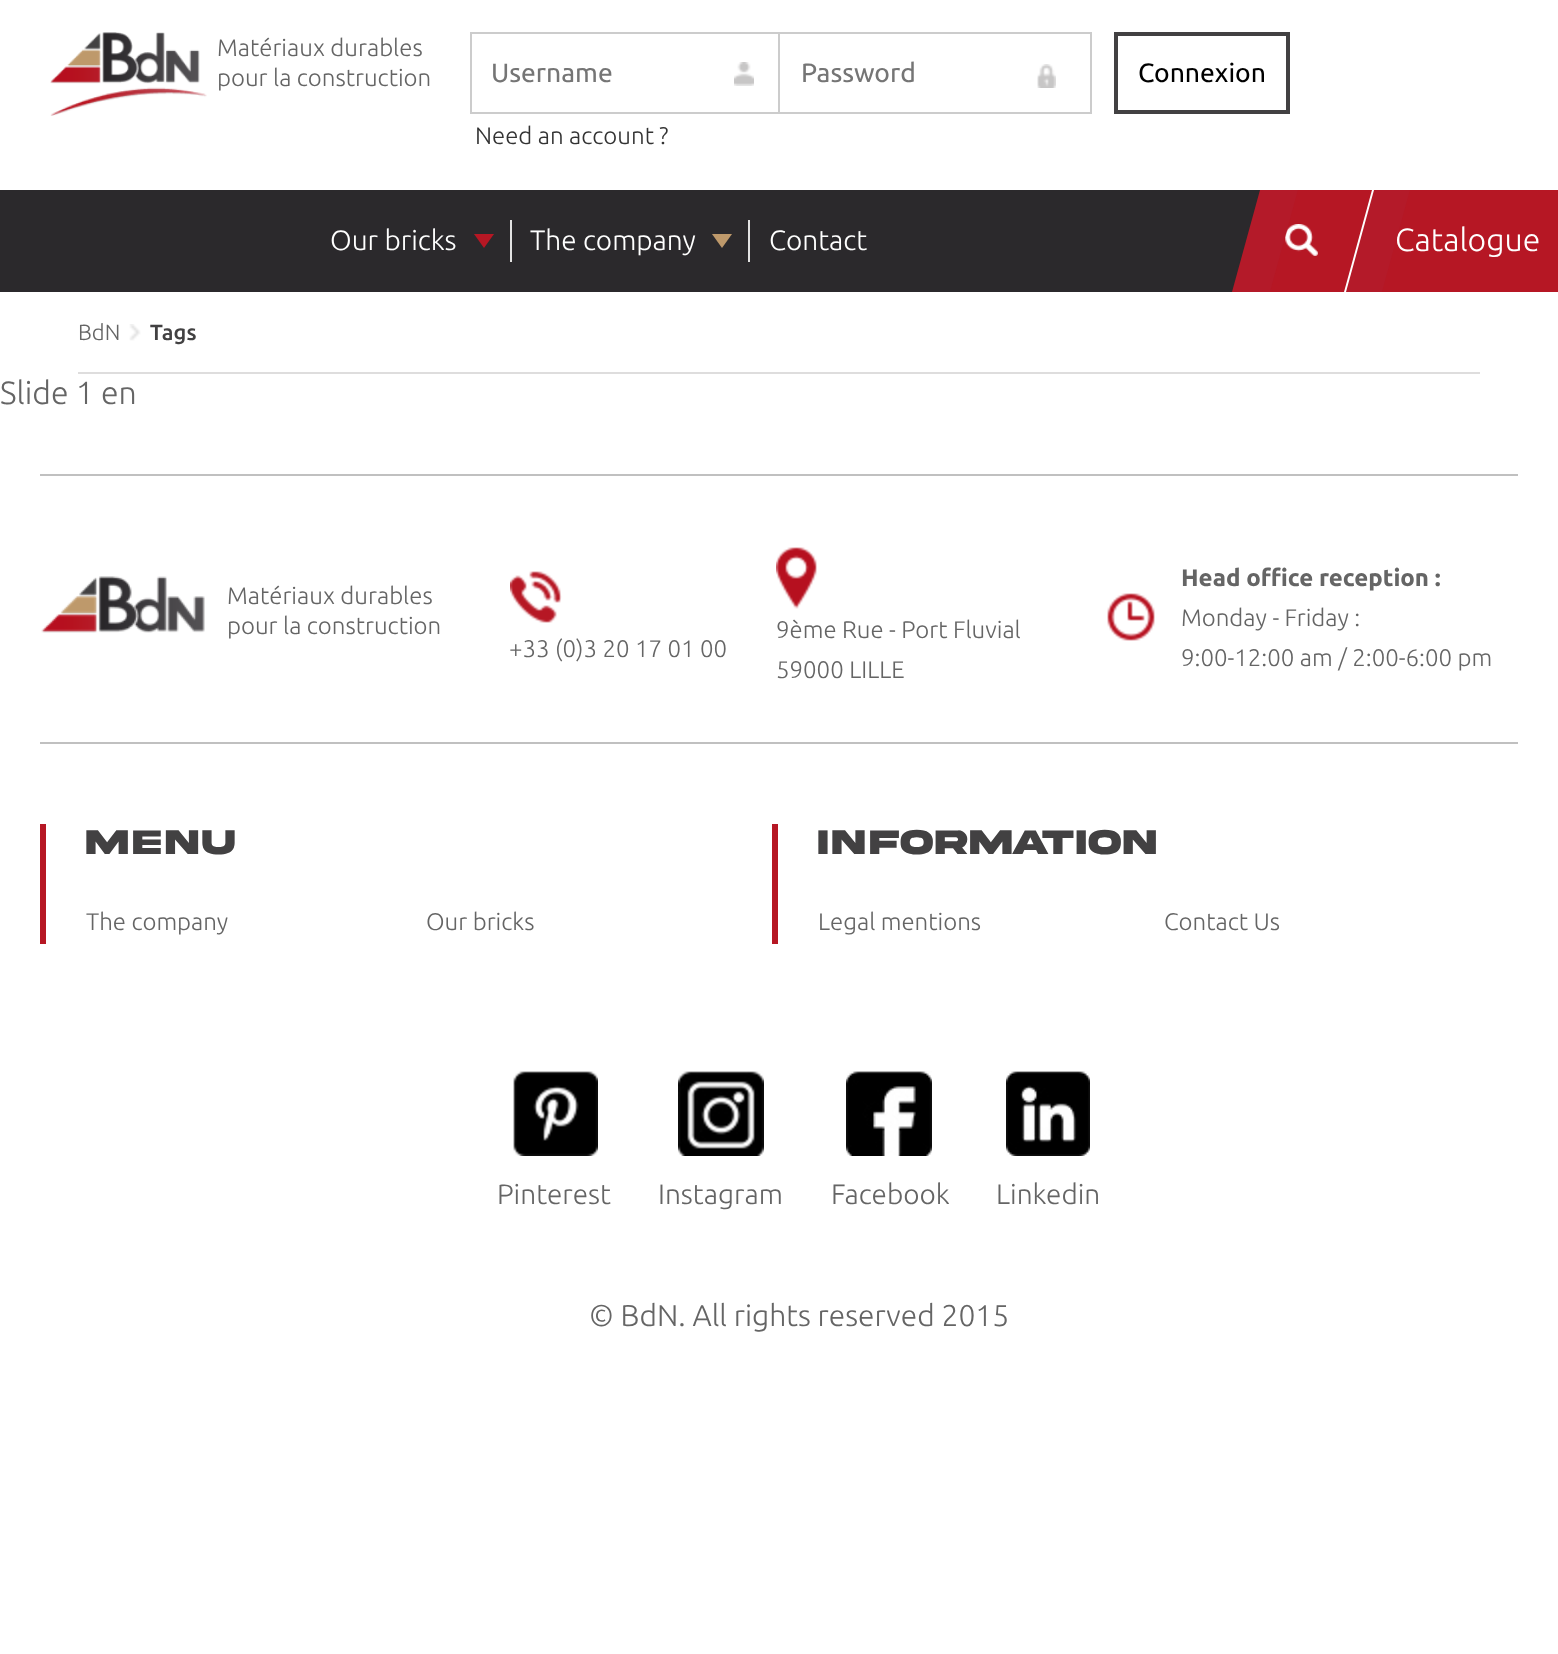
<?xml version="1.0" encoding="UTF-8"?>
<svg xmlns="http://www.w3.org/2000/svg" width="1558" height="1654">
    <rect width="100%" height="100%" fill="#FFFFFF"/>
    <image x="50" y="32" width="157" height="84" href="img_01.png"/>
    <text font-family="Ubuntu" font-size="24" font-weight="300" fill="#656565">
        <tspan x="217" y="56">Matériaux durables</tspan>
        <tspan x="217" y="86">pour la construction</tspan>
    </text>
    <rect x="471" y="33" width="312" height="80" fill="none" stroke="#CCCCCC" stroke-width="2"/>
    <text x="491" y="82" font-family="Ubuntu" font-size="26.5" fill="#757575">Username</text>
    <image x="734" y="62" width="20" height="24" href="img_02.png"/>
    <rect x="782" y="34" width="2" height="78" fill="#FFFFFF"/>
    <rect x="779" y="33" width="312" height="80" fill="none" stroke="#CCCCCC" stroke-width="2"/>
    <text x="801" y="82" font-family="Ubuntu" font-size="26.5" fill="#757575">Password</text>
    <image x="1037" y="64" width="19" height="24" href="img_03.png"/>
    <rect x="1116" y="34" width="172" height="78" fill="none" stroke="#424142" stroke-width="4"/>
    <text x="1138" y="82" font-family="Ubuntu" font-size="26.5" fill="#000000">Connexion</text>
    <text x="475" y="144" font-family="Ubuntu" font-size="24" font-weight="300" fill="#333333">Need an account ?</text>
    <rect x="0" y="190" width="1260" height="102" fill="#2B292C"/>
    <rect x="510" y="220" width="2" height="42" fill="#E3E2E2"/>
    <text x="330" y="250" font-family="Ubuntu" font-size="28" font-weight="300" fill="#FFFFFF">Our bricks</text>
    <path d="M 474 234 H 494 L 484 248 Z" fill="#B61724"/>
    <rect x="748" y="220" width="2" height="42" fill="#E3E2E2"/>
    <text x="530" y="250" font-family="Ubuntu" font-size="28" font-weight="300" fill="#FFFFFF">The company</text>
    <path d="M 712 234 H 732 L 722 248 Z" fill="#BE996B"/>
    <text x="769" y="250" font-family="Ubuntu" font-size="28" font-weight="300" fill="#FFFFFF">Contact</text>
    <rect x="1270" y="190" width="102" height="102" fill="#B61724"/>
    <image x="1285" y="224" width="33" height="32" href="img_04.png"/>
    <path d="M 1260 190 H 1298 L 1270 292 H 1232 Z" fill="#B41A29"/>
    <rect x="1382" y="190" width="176" height="102" fill="#B61724"/>
    <text x="1395" y="251" font-family="Ubuntu" font-size="32" font-weight="300" fill="#FFFFFF">Catalogue</text>
    <path d="M 1372 190 H 1410 L 1382 292 H 1344 Z" fill="#B41A29"/>
    <path d="M 1372 190 H 1374 L 1346 292 H 1344 Z" fill="#FFFFFF"/>
    <rect x="78" y="372" width="1402" height="2" fill="#DEDDDD"/>
    <text x="78" y="340" font-family="Ubuntu" font-size="22" font-weight="300" fill="#656565">BdN</text>
    <image x="129" y="324" width="12" height="17" href="img_05.png"/>
    <text x="150" y="340" font-family="Ubuntu" font-size="22" font-weight="500" fill="#424142">Tags</text>
    <text x="0" y="404" font-family="Ubuntu" font-size="32" font-weight="300" fill="#656565">Slide 1 en</text>
    <rect x="40" y="474" width="1478" height="2" fill="#C0C0C0"/>
    <rect x="40" y="742" width="1478" height="2" fill="#C0C0C0"/>
    <image x="41" y="576" width="164" height="57" href="img_06.png"/>
    <text font-family="Ubuntu" font-size="24" font-weight="300" fill="#656565">
        <tspan x="227" y="604">Matériaux durables</tspan>
        <tspan x="227" y="634">pour la construction</tspan>
    </text>
    <image x="510" y="571" width="52" height="52" href="img_07.png"/>
    <text x="509" y="657" font-family="Ubuntu" font-size="24" font-weight="300" fill="#656565">+33 (0)3 20 17 01 00</text>
    <image x="776" y="547" width="41" height="62" href="img_08.png"/>
    <text font-family="Ubuntu" font-size="24" font-weight="300" fill="#656565">
        <tspan x="776" y="638">9ème Rue - Port Fluvial</tspan>
        <tspan x="776" y="678">59000 LILLE</tspan>
    </text>
    <image x="1107" y="593" width="48" height="48" href="img_09.png"/>
    <text x="1181" y="586" font-family="Ubuntu" font-size="24" font-weight="700" fill="#656565">Head office reception :</text>
    <text font-family="Ubuntu" font-size="24" font-weight="300" fill="#656565">
        <tspan x="1181" y="626">Monday - Friday :</tspan>
        <tspan x="1181" y="666">9:00-12:00 am / 2:00-6:00 pm</tspan>
    </text>
    <rect x="40" y="824" width="6" height="120" fill="#B61724"/>
    <text x="86" y="854" font-family="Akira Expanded" font-size="36" font-weight="700" fill="#424142">Menu</text>
    <text x="86" y="930" font-family="Ubuntu" font-size="24" font-weight="300" fill="#656565">The company</text>
    <text x="426" y="930" font-family="Ubuntu" font-size="24" font-weight="300" fill="#656565">Our bricks</text>
    <rect x="772" y="824" width="6" height="120" fill="#B61724"/>
    <text x="818" y="854" font-family="Akira Expanded" font-size="36" font-weight="700" fill="#424142">Information</text>
    <text x="818" y="930" font-family="Ubuntu" font-size="24" font-weight="300" fill="#656565">Legal mentions</text>
    <text x="1164" y="930" font-family="Ubuntu" font-size="24" font-weight="300" fill="#656565">Contact Us</text>
    <image x="513" y="1071" width="85" height="85" href="img_10.png"/>
    <text x="497" y="1204" font-family="Ubuntu" font-size="28" font-weight="300" fill="#656565">Pinterest</text>
    <image x="678" y="1071" width="86" height="85" href="img_11.png"/>
    <text x="658" y="1204" font-family="Ubuntu" font-size="28" font-weight="300" fill="#656565">Instagram</text>
    <image x="846" y="1071" width="86" height="85" href="img_12.png"/>
    <text x="831" y="1204" font-family="Ubuntu" font-size="28" font-weight="300" fill="#656565">Facebook</text>
    <image x="1006" y="1071" width="84" height="85" href="img_13.png"/>
    <text x="996" y="1204" font-family="Ubuntu" font-size="28" font-weight="300" fill="#656565">Linkedin</text>
    <text x="589" y="1326" font-family="Ubuntu" font-size="30" font-weight="300" fill="#656565">© BdN. All rights reserved 2015</text>
</svg>
